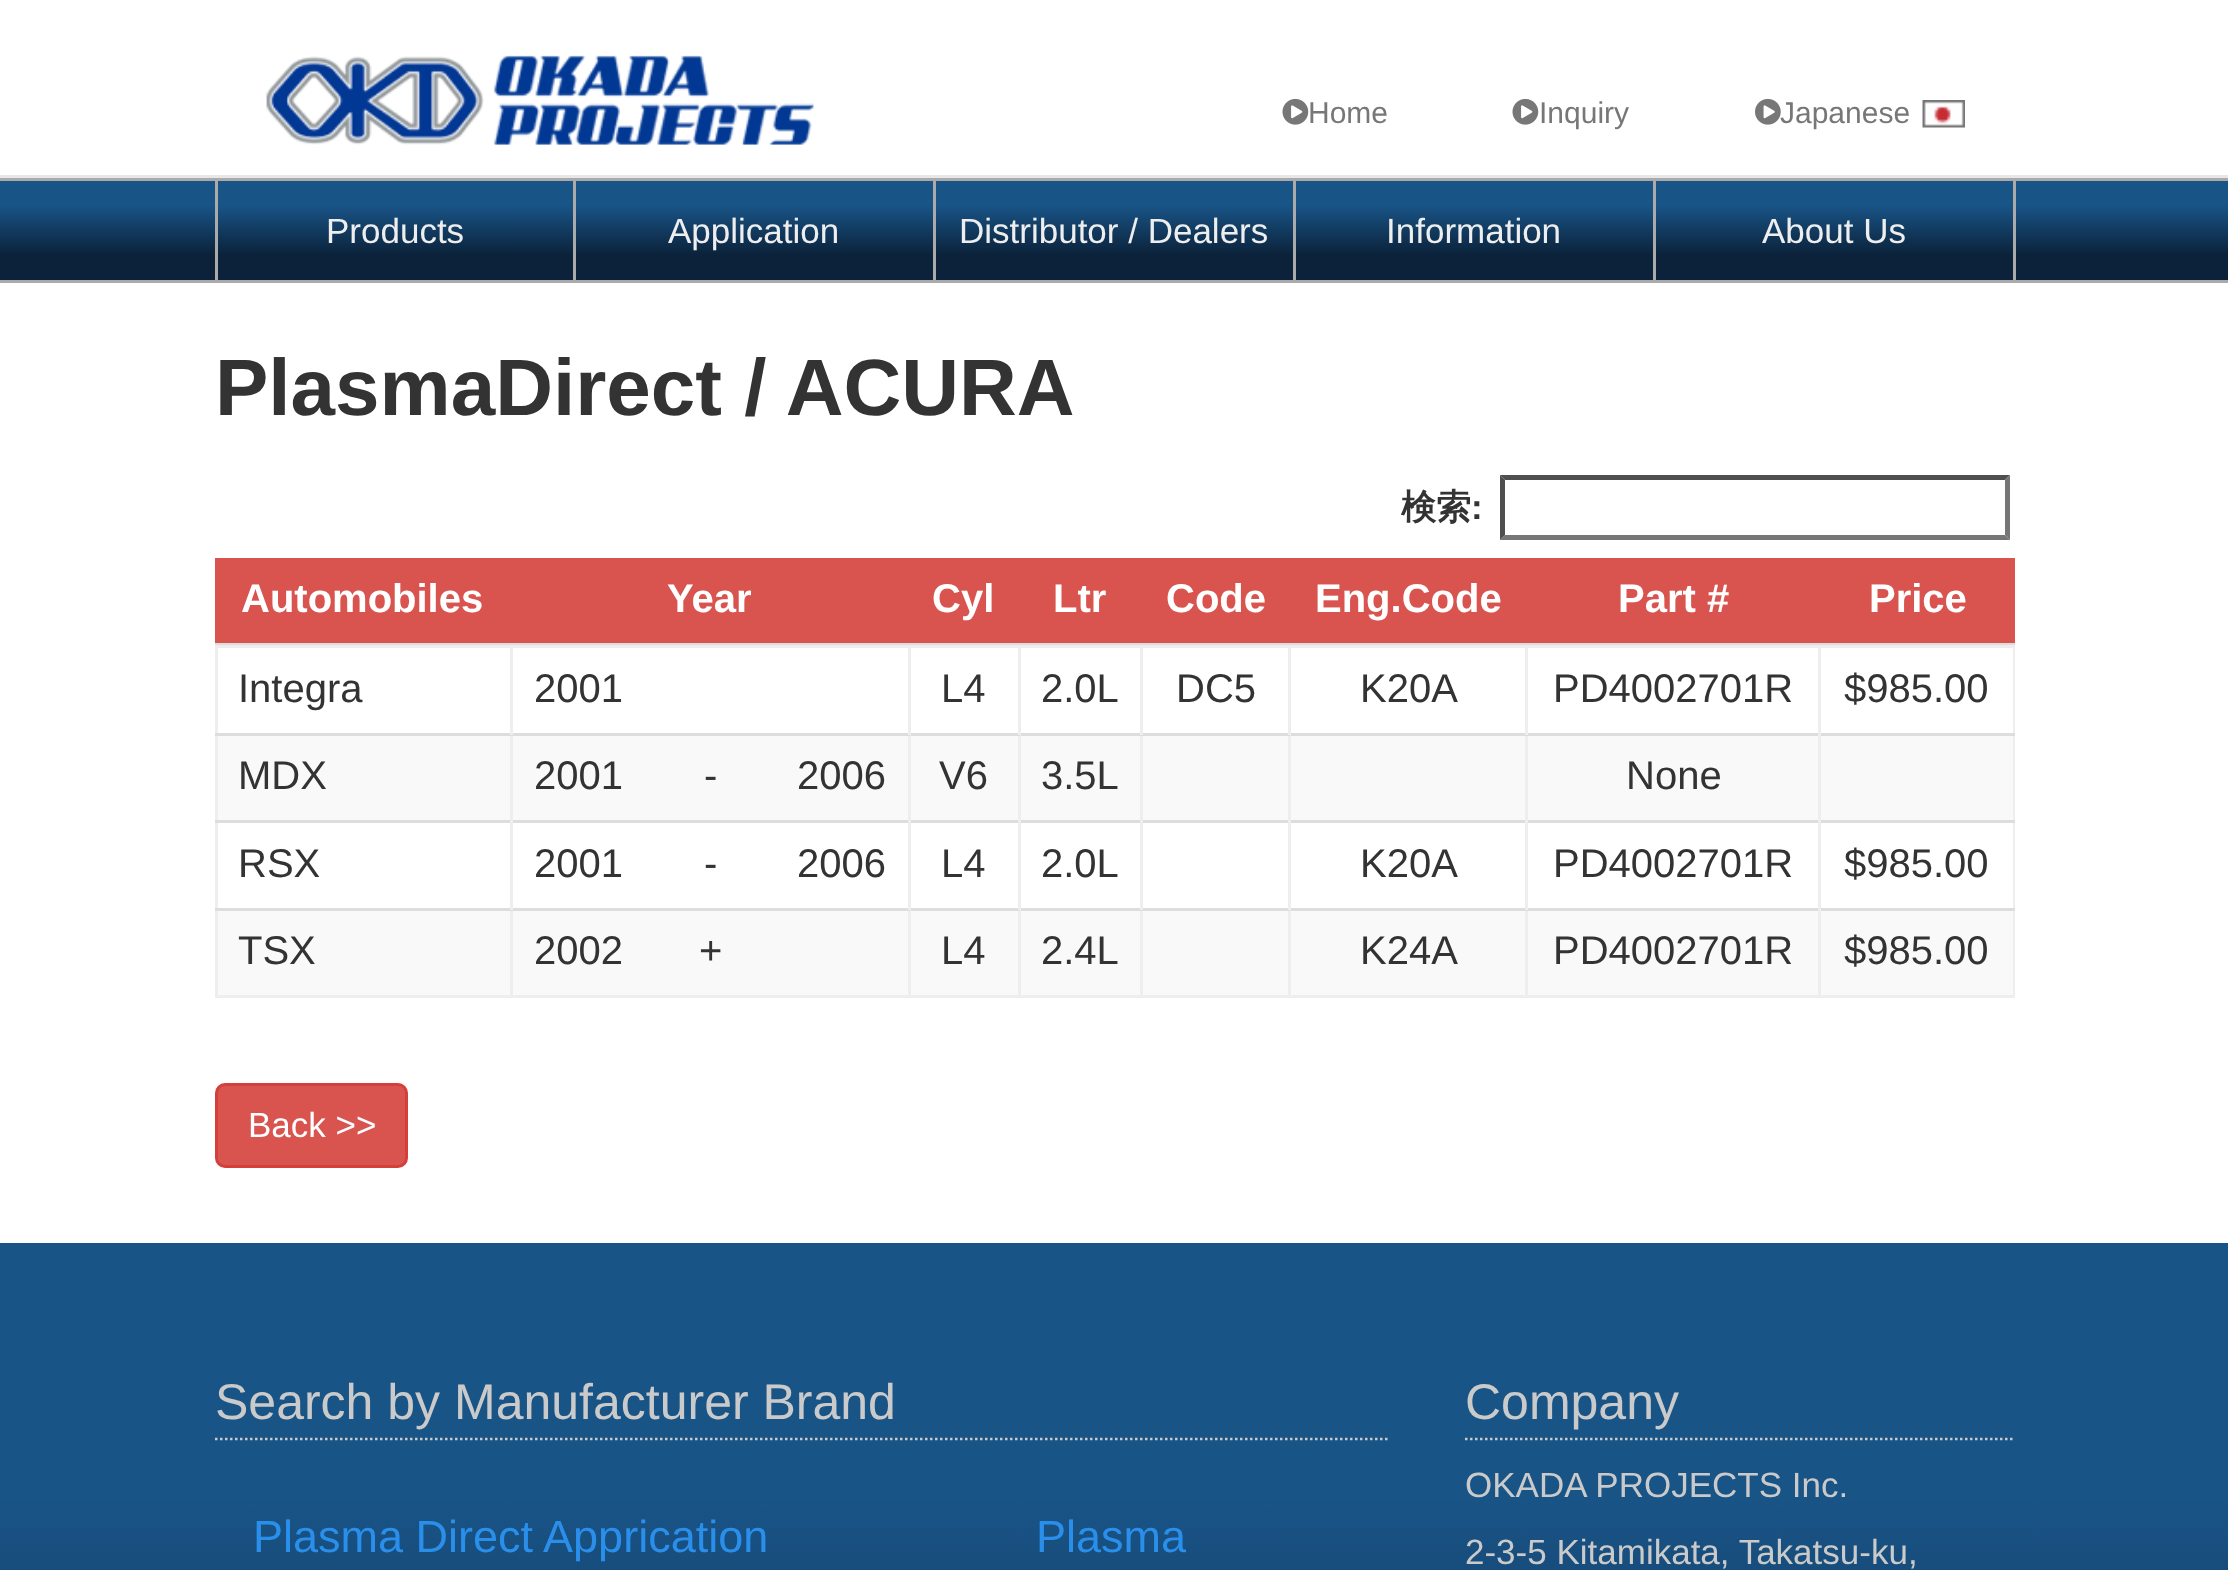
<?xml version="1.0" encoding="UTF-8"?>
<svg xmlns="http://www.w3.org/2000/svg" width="2228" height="1570">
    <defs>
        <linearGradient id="g1" gradientUnits="userSpaceOnUse" x1="1115" y1="180" x2="1115" y2="280"><stop offset="0.25" stop-color="#195487"/><stop offset="0.75" stop-color="#0B223A"/></linearGradient>
        <linearGradient id="g2" gradientUnits="userSpaceOnUse" x1="1115" y1="1242" x2="1115" y2="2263"><stop offset="0.25" stop-color="#195487"/><stop offset="0.75" stop-color="#0B223A"/></linearGradient>
    </defs>
    <rect width="100%" height="100%" fill="#FFFFFF"/>
    <rect x="0" y="175" width="2228" height="3" fill="#E7E7E7"/>
    <image x="266" y="55" width="548" height="90" href="img_01.png"/>
    <image x="1282" y="98" width="27" height="27" href="img_02.png"/>
    <text x="1308" y="123" font-family="Liberation Sans" font-size="30" fill="#777777">Home</text>
    <image x="1512" y="98" width="27" height="27" href="img_02.png"/>
    <text x="1539" y="123" font-family="Liberation Sans" font-size="30" fill="#777777">Inquiry</text>
    <image x="1755" y="98" width="26" height="27" href="img_03.png"/>
    <text x="1780" y="123" font-family="Liberation Sans" font-size="30" fill="#777777">Japanese</text>
    <image x="1922" y="100" width="43" height="28" href="img_04.png"/>
    <rect x="0" y="181" width="2228" height="99" fill="url(#g1)"/>
    <rect x="0" y="178" width="2228" height="3" fill="#AAAAAA"/>
    <rect x="0" y="280" width="2228" height="3" fill="#AAAAAA"/>
    <rect x="573" y="180" width="3" height="100" fill="#AAAAAA"/>
    <rect x="215" y="180" width="3" height="100" fill="#AAAAAA"/>
    <text x="326" y="243" font-family="Liberation Sans" font-size="35" fill="#EEEEEE">Products</text>
    <rect x="933" y="180" width="3" height="100" fill="#AAAAAA"/>
    <text x="668" y="243" font-family="Liberation Sans" font-size="35" fill="#EEEEEE">Application</text>
    <rect x="1293" y="180" width="3" height="100" fill="#AAAAAA"/>
    <text x="959" y="243" font-family="Liberation Sans" font-size="35" fill="#EEEEEE">Distributor / Dealers</text>
    <rect x="1653" y="180" width="3" height="100" fill="#AAAAAA"/>
    <text x="1386" y="243" font-family="Liberation Sans" font-size="35" fill="#EEEEEE">Information</text>
    <rect x="2013" y="180" width="3" height="100" fill="#AAAAAA"/>
    <text x="1762" y="243" font-family="Liberation Sans" font-size="35" fill="#EEEEEE">About Us</text>
    <text x="215" y="415" font-family="Liberation Sans" font-size="80" font-weight="700" fill="#333333">PlasmaDirect / ACURA</text>
    <path d="M 1500 475 H 2010 L 2005 480 H 1505 Z" fill="#4F4F4F"/>
    <text x="1401" y="519" font-family="WenQuanYi Zen Hei" font-size="35" font-weight="700" fill="#333333">検索</text>
    <text x="1471" y="519" font-family="Liberation Sans" font-size="35" font-weight="700" fill="#333333">:</text>
    <path d="M 2010 475 V 540 L 2005 535 V 480 Z" fill="#767676"/>
    <path d="M 2010 540 H 1500 L 1505 535 H 2005 Z" fill="#767676"/>
    <path d="M 1500 540 V 475 L 1505 480 V 535 Z" fill="#4F4F4F"/>
    <rect x="215" y="558" width="1800" height="85" fill="#D9534F"/>
    <text x="241" y="612" font-family="Liberation Sans" font-size="40" font-weight="700" fill="#FFFFFF">Automobiles</text>
    <text x="667" y="612" font-family="Liberation Sans" font-size="40" font-weight="700" fill="#FFFFFF">Year</text>
    <text x="932" y="612" font-family="Liberation Sans" font-size="40" font-weight="700" fill="#FFFFFF">Cyl</text>
    <text x="1053" y="612" font-family="Liberation Sans" font-size="40" font-weight="700" fill="#FFFFFF">Ltr</text>
    <text x="1166" y="612" font-family="Liberation Sans" font-size="40" font-weight="700" fill="#FFFFFF">Code</text>
    <text x="1315" y="612" font-family="Liberation Sans" font-size="40" font-weight="700" fill="#FFFFFF">Eng.Code</text>
    <text x="1618" y="612" font-family="Liberation Sans" font-size="40" font-weight="700" fill="#FFFFFF">Part #</text>
    <rect x="215" y="643" width="1800" height="2" fill="#DDDDDD"/>
    <text x="1869" y="612" font-family="Liberation Sans" font-size="40" font-weight="700" fill="#FFFFFF">Price</text>
    <rect x="215" y="645" width="1800" height="3" fill="#EEEEEE"/>
    <rect x="2013" y="645" width="2" height="353" fill="#EEEEEE"/>
    <rect x="215" y="995" width="1800" height="3" fill="#EEEEEE"/>
    <rect x="215" y="645" width="3" height="353" fill="#EEEEEE"/>
    <text x="238" y="702" font-family="Liberation Sans" font-size="40" fill="#333333">Integra</text>
    <rect x="1525" y="733" width="490" height="3" fill="#DDDDDD"/>
    <rect x="1525" y="820" width="490" height="3" fill="#DDDDDD"/>
    <rect x="1525" y="908" width="490" height="3" fill="#DDDDDD"/>
    <rect x="1525" y="908" width="3" height="90" fill="#EEEEEE"/>
    <rect x="1288" y="908" width="240" height="3" fill="#DDDDDD"/>
    <rect x="1525" y="820" width="3" height="90" fill="#EEEEEE"/>
    <rect x="1288" y="820" width="240" height="3" fill="#DDDDDD"/>
    <rect x="1525" y="733" width="3" height="90" fill="#EEEEEE"/>
    <rect x="1288" y="733" width="240" height="3" fill="#DDDDDD"/>
    <rect x="1288" y="908" width="3" height="90" fill="#EEEEEE"/>
    <rect x="1140" y="908" width="150" height="3" fill="#DDDDDD"/>
    <rect x="1288" y="820" width="3" height="90" fill="#EEEEEE"/>
    <rect x="1140" y="820" width="150" height="3" fill="#DDDDDD"/>
    <rect x="1288" y="733" width="3" height="90" fill="#EEEEEE"/>
    <rect x="1140" y="733" width="150" height="3" fill="#DDDDDD"/>
    <rect x="1140" y="908" width="3" height="90" fill="#EEEEEE"/>
    <rect x="1018" y="908" width="125" height="3" fill="#DDDDDD"/>
    <rect x="1140" y="820" width="3" height="90" fill="#EEEEEE"/>
    <rect x="1018" y="820" width="125" height="3" fill="#DDDDDD"/>
    <rect x="1140" y="733" width="3" height="90" fill="#EEEEEE"/>
    <rect x="1018" y="733" width="125" height="3" fill="#DDDDDD"/>
    <rect x="1018" y="908" width="3" height="90" fill="#EEEEEE"/>
    <rect x="908" y="908" width="112" height="3" fill="#DDDDDD"/>
    <rect x="1018" y="820" width="3" height="90" fill="#EEEEEE"/>
    <rect x="908" y="820" width="112" height="3" fill="#DDDDDD"/>
    <rect x="1018" y="733" width="3" height="90" fill="#EEEEEE"/>
    <rect x="908" y="733" width="112" height="3" fill="#DDDDDD"/>
    <rect x="908" y="908" width="3" height="90" fill="#EEEEEE"/>
    <rect x="510" y="908" width="400" height="3" fill="#DDDDDD"/>
    <rect x="908" y="820" width="3" height="90" fill="#EEEEEE"/>
    <rect x="510" y="820" width="400" height="3" fill="#DDDDDD"/>
    <rect x="908" y="733" width="3" height="90" fill="#EEEEEE"/>
    <rect x="510" y="733" width="400" height="3" fill="#DDDDDD"/>
    <rect x="510" y="908" width="3" height="90" fill="#EEEEEE"/>
    <rect x="215" y="908" width="298" height="3" fill="#DDDDDD"/>
    <rect x="510" y="820" width="3" height="90" fill="#EEEEEE"/>
    <rect x="215" y="820" width="298" height="3" fill="#DDDDDD"/>
    <rect x="510" y="733" width="3" height="90" fill="#EEEEEE"/>
    <rect x="215" y="733" width="298" height="3" fill="#DDDDDD"/>
    <rect x="510" y="645" width="3" height="90" fill="#EEEEEE"/>
    <text x="534" y="702" font-family="Liberation Sans" font-size="40" fill="#333333">2001</text>
    <rect x="908" y="645" width="3" height="90" fill="#EEEEEE"/>
    <text x="941" y="702" font-family="Liberation Sans" font-size="40" fill="#333333">L4</text>
    <rect x="1018" y="645" width="3" height="90" fill="#EEEEEE"/>
    <text x="1041" y="702" font-family="Liberation Sans" font-size="40" fill="#333333">2.0L</text>
    <rect x="1140" y="645" width="3" height="90" fill="#EEEEEE"/>
    <text x="1176" y="702" font-family="Liberation Sans" font-size="40" fill="#333333">DC5</text>
    <rect x="1288" y="645" width="3" height="90" fill="#EEEEEE"/>
    <text x="1360" y="702" font-family="Liberation Sans" font-size="40" fill="#333333">K20A</text>
    <rect x="1525" y="645" width="3" height="90" fill="#EEEEEE"/>
    <text x="1553" y="702" font-family="Liberation Sans" font-size="40" fill="#333333">PD4002701R</text>
    <text x="1844" y="702" font-family="Liberation Sans" font-size="40" fill="#333333">$985.00</text>
    <rect x="218" y="736" width="292" height="84" fill="#F9F9F9"/>
    <text x="238" y="789" font-family="Liberation Sans" font-size="40" fill="#333333">MDX</text>
    <rect x="513" y="736" width="395" height="84" fill="#F9F9F9"/>
    <text x="534" y="789" font-family="Liberation Sans" font-size="40" fill="#333333">2001</text>
    <text x="797" y="789" font-family="Liberation Sans" font-size="40" fill="#333333">2006</text>
    <rect x="911" y="736" width="107" height="84" fill="#F9F9F9"/>
    <text x="939" y="789" font-family="Liberation Sans" font-size="40" fill="#333333">V6</text>
    <rect x="1021" y="736" width="119" height="84" fill="#F9F9F9"/>
    <text x="1041" y="789" font-family="Liberation Sans" font-size="40" fill="#333333">3.5L</text>
    <rect x="1143" y="736" width="145" height="84" fill="#F9F9F9"/>
    <rect x="1291" y="736" width="234" height="84" fill="#F9F9F9"/>
    <rect x="1821" y="736" width="192" height="84" fill="#F9F9F9"/>
    <text x="704" y="789" font-family="Liberation Sans" font-size="40" fill="#333333">-</text>
    <rect x="1528" y="736" width="290" height="84" fill="#F9F9F9"/>
    <rect x="1818" y="908" width="3" height="90" fill="#EEEEEE"/>
    <rect x="1818" y="820" width="3" height="90" fill="#EEEEEE"/>
    <rect x="1818" y="645" width="3" height="178" fill="#EEEEEE"/>
    <text x="1626" y="789" font-family="Liberation Sans" font-size="40" fill="#333333">None</text>
    <text x="238" y="877" font-family="Liberation Sans" font-size="40" fill="#333333">RSX</text>
    <text x="534" y="877" font-family="Liberation Sans" font-size="40" fill="#333333">2001</text>
    <text x="704" y="877" font-family="Liberation Sans" font-size="40" fill="#333333">-</text>
    <text x="797" y="877" font-family="Liberation Sans" font-size="40" fill="#333333">2006</text>
    <text x="941" y="877" font-family="Liberation Sans" font-size="40" fill="#333333">L4</text>
    <text x="1041" y="877" font-family="Liberation Sans" font-size="40" fill="#333333">2.0L</text>
    <text x="1360" y="877" font-family="Liberation Sans" font-size="40" fill="#333333">K20A</text>
    <text x="1553" y="877" font-family="Liberation Sans" font-size="40" fill="#333333">PD4002701R</text>
    <text x="1844" y="877" font-family="Liberation Sans" font-size="40" fill="#333333">$985.00</text>
    <rect x="218" y="911" width="292" height="84" fill="#F9F9F9"/>
    <text x="238" y="964" font-family="Liberation Sans" font-size="40" fill="#333333">TSX</text>
    <rect x="1143" y="911" width="145" height="84" fill="#F9F9F9"/>
    <rect x="1821" y="911" width="192" height="84" fill="#F9F9F9"/>
    <text x="1844" y="964" font-family="Liberation Sans" font-size="40" fill="#333333">$985.00</text>
    <rect x="513" y="911" width="395" height="84" fill="#F9F9F9"/>
    <text x="534" y="964" font-family="Liberation Sans" font-size="40" fill="#333333">2002</text>
    <text x="699" y="964" font-family="Liberation Sans" font-size="40" fill="#333333">+</text>
    <rect x="911" y="911" width="107" height="84" fill="#F9F9F9"/>
    <text x="941" y="964" font-family="Liberation Sans" font-size="40" fill="#333333">L4</text>
    <rect x="1021" y="911" width="119" height="84" fill="#F9F9F9"/>
    <text x="1041" y="964" font-family="Liberation Sans" font-size="40" fill="#333333">2.4L</text>
    <rect x="1291" y="911" width="234" height="84" fill="#F9F9F9"/>
    <text x="1360" y="964" font-family="Liberation Sans" font-size="40" fill="#333333">K24A</text>
    <rect x="1528" y="911" width="290" height="84" fill="#F9F9F9"/>
    <text x="1553" y="964" font-family="Liberation Sans" font-size="40" fill="#333333">PD4002701R</text>
    <rect x="216.5" y="1084.5" width="190" height="82" rx="8.5" fill="#D9534F" stroke="#D43F3A" stroke-width="3"/>
    <text x="248" y="1137" font-family="Liberation Sans" font-size="35" fill="#FFFFFF">Back &gt;&gt;</text>
    <rect x="0" y="1243" width="2228" height="327" fill="url(#g2)"/>
    <path d="M 215 1439 H 1390" fill="none" stroke="#CACACA" stroke-width="2.5" stroke-dasharray="2.5 2.5"/>
    <text x="215" y="1419" font-family="Liberation Sans" font-size="50" fill="#CACACA">Search by Manufacturer Brand</text>
    <text x="253" y="1552" font-family="Liberation Sans" font-size="45" fill="#2A8FEB">Plasma Direct Apprication</text>
    <text x="1036" y="1552" font-family="Liberation Sans" font-size="45" fill="#2A8FEB">Plasma</text>
    <path d="M 1465 1439 H 2015" fill="none" stroke="#CACACA" stroke-width="2.5" stroke-dasharray="2.5 2.5"/>
    <text x="1465" y="1419" font-family="Liberation Sans" font-size="50" fill="#CACACA">Company</text>
    <text font-family="Liberation Sans" font-size="35" fill="#CACACA">
        <tspan x="1465" y="1497">OKADA PROJECTS Inc.</tspan>
        <tspan x="1465" y="1564">2-3-5 Kitamikata, Takatsu-ku,</tspan>
    </text>
</svg>
